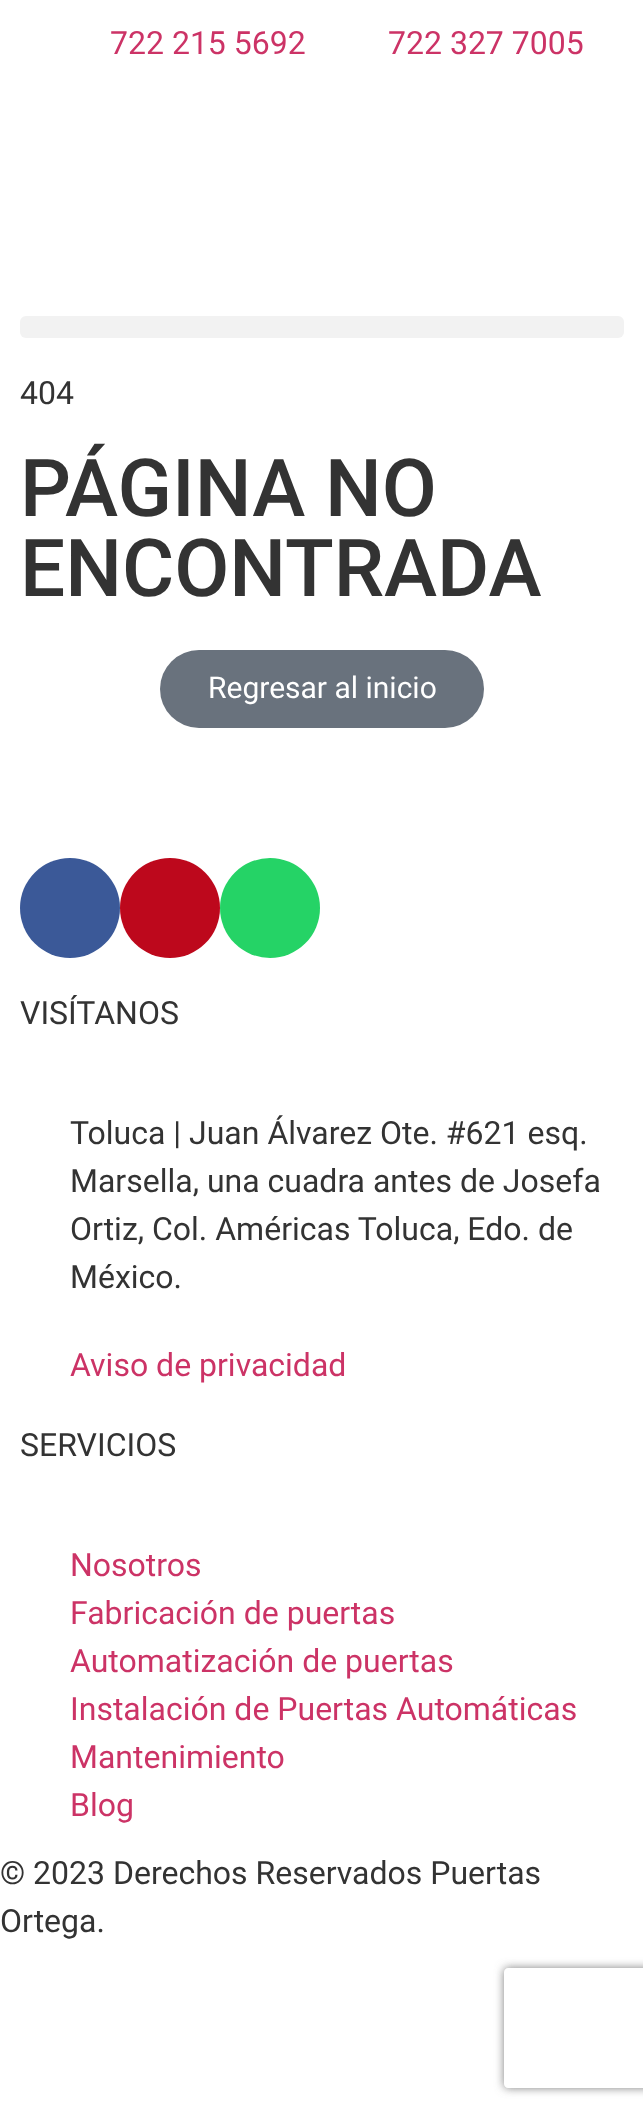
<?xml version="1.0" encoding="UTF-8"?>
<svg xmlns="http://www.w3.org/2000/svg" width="643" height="2116">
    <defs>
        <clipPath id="clip1"><path d="M 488 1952 H 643 V 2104 H 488 Z M 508 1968 H 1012 C 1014 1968 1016 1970 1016 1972 V 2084 C 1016 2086 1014 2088 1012 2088 H 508 C 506 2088 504 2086 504 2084 V 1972 C 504 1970 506 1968 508 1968 Z" clip-rule="evenodd"/></clipPath>
        <filter id="blur1" x="-50%" y="-200%" width="200%" height="500%"><feGaussianBlur stdDeviation="5"/></filter>
    </defs>
    <rect width="100%" height="100%" fill="#FFFFFF"/>
    <text x="110" y="54" font-family="Roboto" font-size="32" fill="#CC3366">722 215 5692</text>
    <text x="388" y="54" font-family="Roboto" font-size="32" fill="#CC3366">722 327 7005</text>
    <rect x="20" y="316" width="604" height="22" rx="6" fill="#F2F2F2"/>
    <text x="20" y="404" font-family="Roboto" font-size="32" fill="#333333">404</text>
    <text font-family="Roboto" font-size="80" font-weight="500" fill="#333333">
        <tspan x="20" y="516">PÁGINA NO</tspan>
        <tspan x="20" y="596">ENCONTRADA</tspan>
    </text>
    <rect x="160" y="650" width="324" height="78" rx="39" fill="#69727D"/>
    <text x="208" y="698" font-family="Roboto" font-size="30" fill="#FFFFFF">Regresar al inicio</text>
    <circle cx="70" cy="908" r="50" fill="#3B5998"/>
    <circle cx="170" cy="908" r="50" fill="#BD081C"/>
    <circle cx="270" cy="908" r="50" fill="#25D366"/>
    <text x="20" y="1024" font-family="Roboto" font-size="32" fill="#333333">VISÍTANOS</text>
    <text font-family="Roboto" font-size="32" fill="#333333">
        <tspan x="70" y="1144">Toluca | Juan Álvarez Ote. #621 esq.</tspan>
        <tspan x="70" y="1192">Marsella, una cuadra antes de Josefa</tspan>
        <tspan x="70" y="1240">Ortiz, Col. Américas Toluca, Edo. de</tspan>
        <tspan x="70" y="1288">México.</tspan>
    </text>
    <text x="70" y="1376" font-family="Roboto" font-size="32" fill="#CC3366">Aviso de privacidad</text>
    <text x="20" y="1456" font-family="Roboto" font-size="32" fill="#333333">SERVICIOS</text>
    <text font-family="Roboto" font-size="32" fill="#CC3366">
        <tspan x="70" y="1576">Nosotros</tspan>
        <tspan x="70" y="1624">Fabricación de puertas</tspan>
        <tspan x="70" y="1672">Automatización de puertas</tspan>
        <tspan x="70" y="1720">Instalación de Puertas Automáticas</tspan>
        <tspan x="70" y="1768">Mantenimiento</tspan>
        <tspan x="70" y="1816">Blog</tspan>
    </text>
    <text font-family="Roboto" font-size="32" fill="#333333">
        <tspan x="0" y="1884">© 2023 Derechos Reservados Puertas</tspan>
        <tspan x="0" y="1932">Ortega.</tspan>
    </text>
    <g clip-path="url(#clip1)">
        <rect x="504" y="1968" width="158" height="120" rx="4" fill="#808080" filter="url(#blur1)"/>
    </g>
</svg>
